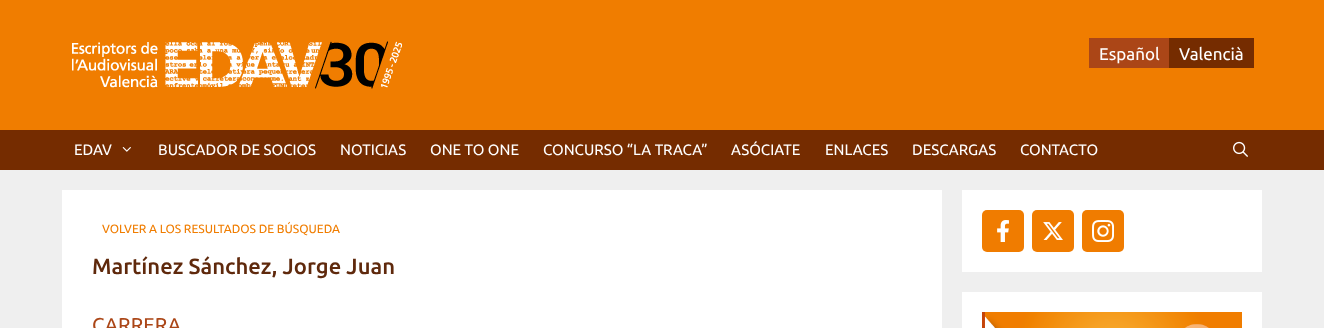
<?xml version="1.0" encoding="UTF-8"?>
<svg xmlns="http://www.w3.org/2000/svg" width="1324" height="328">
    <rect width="100%" height="100%" fill="#EFEFEF"/>
    <rect x="0" y="0" width="1324" height="130" fill="#F07D00"/>
    <image x="72" y="41" width="330" height="48" href="img_01.png"/>
    <rect x="1089" y="38" width="80" height="30" fill="#AB4617"/>
    <text x="1099" y="60" font-family="Ubuntu" font-size="17" fill="#FFFFFF">Español</text>
    <rect x="1169" y="38" width="85" height="30" fill="#752C00"/>
    <text x="1179" y="60" font-family="Ubuntu" font-size="17" fill="#FFFFFF">Valencià</text>
    <rect x="0" y="130" width="1324" height="40" fill="#752C00"/>
    <text x="74" y="155" font-family="Ubuntu" font-size="15" fill="#FFFFFF">EDAV</text>
    <image x="122" y="147" width="9" height="5" href="img_02.png"/>
    <text x="158" y="155" font-family="Ubuntu" font-size="15" fill="#FFFFFF">BUSCADOR DE SOCIOS</text>
    <text x="340" y="155" font-family="Ubuntu" font-size="15" fill="#FFFFFF">NOTICIAS</text>
    <text x="430" y="155" font-family="Ubuntu" font-size="15" fill="#FFFFFF">ONE TO ONE</text>
    <text x="543" y="155" font-family="Ubuntu" font-size="15" fill="#FFFFFF">CONCURSO “LA TRACA”</text>
    <text x="731" y="155" font-family="Ubuntu" font-size="15" fill="#FFFFFF">ASÓCIATE</text>
    <text x="825" y="155" font-family="Ubuntu" font-size="15" fill="#FFFFFF">ENLACES</text>
    <text x="912" y="155" font-family="Ubuntu" font-size="15" fill="#FFFFFF">DESCARGAS</text>
    <text x="1020" y="155" font-family="Ubuntu" font-size="15" fill="#FFFFFF">CONTACTO</text>
    <image x="1233" y="141" width="15" height="16" href="img_03.png"/>
    <rect x="62" y="190" width="880" height="138" fill="#FFFFFF"/>
    <text x="102" y="233" font-family="Ubuntu" font-size="12" fill="#F07D00">VOLVER A LOS RESULTADOS DE BÚSQUEDA</text>
    <text x="92" y="274" font-family="Ubuntu" font-size="22" font-weight="500" fill="#5F290C">Martínez Sánchez, Jorge Juan</text>
    <text x="92" y="332" font-family="Ubuntu" font-size="20" fill="#AB4617">CARRERA</text>
    <rect x="962" y="190" width="300" height="82" fill="#FFFFFF"/>
    <rect x="982" y="210" width="42" height="42" rx="5" fill="#F07C00"/>
    <image x="997" y="220" width="12" height="22" href="img_04.png"/>
    <rect x="1032" y="210" width="42" height="42" rx="5" fill="#F07C00"/>
    <image x="1043" y="222" width="20" height="18" href="img_05.png"/>
    <rect x="1082" y="210" width="42" height="42" rx="5" fill="#F07C00"/>
    <image x="1092" y="220" width="22" height="22" href="img_06.png"/>
    <rect x="962" y="292" width="300" height="36" fill="#FFFFFF"/>
    <image x="982" y="312" width="260" height="16" href="img_07.png"/>
</svg>
